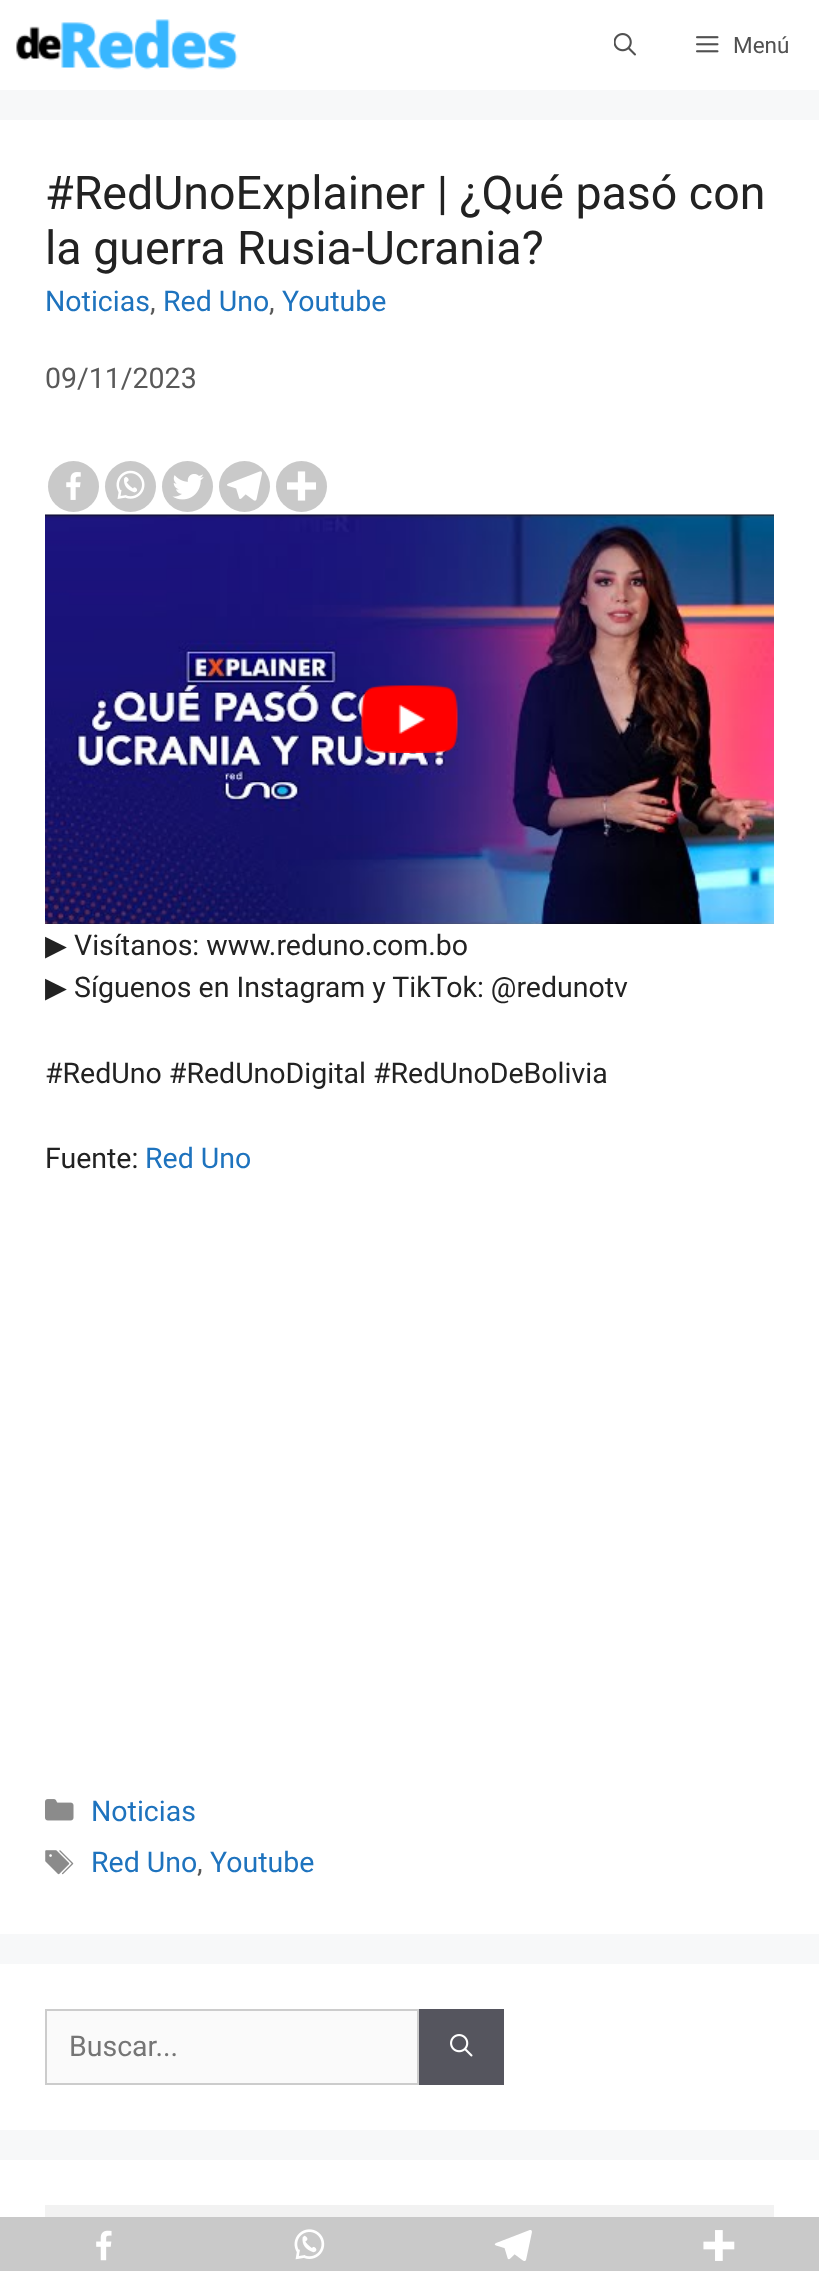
<?xml version="1.0" encoding="UTF-8"?>
<svg xmlns="http://www.w3.org/2000/svg" width="819" height="2271">
    <rect width="100%" height="100%" fill="#F7F8F9"/>
    <rect x="0" y="0" width="819" height="90" fill="#FFFFFF"/>
    <image x="16" y="19" width="222" height="51" href="img_01.png"/>
    <image x="614" y="33" width="22" height="23" href="img_02.png"/>
    <image x="696" y="36" width="23" height="17" href="img_03.png"/>
    <text x="733" y="53" font-family="Roboto" font-size="22.5" fill="#515151">Menú</text>
    <rect x="0" y="120" width="819" height="1814" fill="#FFFFFF"/>
    <text font-family="Roboto" font-size="46.5" fill="#222222">
        <tspan x="45" y="209">#RedUnoExplainer | ¿Qué pasó con</tspan>
        <tspan x="45" y="264">la guerra Rusia-Ucrania?</tspan>
    </text>
    <text x="45" y="311" font-family="Roboto" font-size="28.5" fill="#1E73BE">Noticias</text>
    <text x="150" y="311" font-family="Roboto" font-size="28.5" fill="#595959">,</text>
    <text x="163" y="311" font-family="Roboto" font-size="28.5" fill="#1E73BE">Red Uno</text>
    <text x="269" y="311" font-family="Roboto" font-size="28.5" fill="#595959">,</text>
    <text x="282" y="311" font-family="Roboto" font-size="28.5" fill="#1E73BE">Youtube</text>
    <text x="45" y="388" font-family="Roboto" font-size="28.5" fill="#595959">09/11/2023</text>
    <circle cx="73.5" cy="486.5" r="25.5" fill="#C9C9C9"/>
    <image x="66" y="472" width="15" height="28" href="img_04.png"/>
    <circle cx="130.5" cy="486.5" r="25.5" fill="#C9C9C9"/>
    <image x="116" y="470" width="29" height="29" href="img_05.png"/>
    <circle cx="187.5" cy="486.5" r="25.5" fill="#C9C9C9"/>
    <image x="172" y="474" width="32" height="26" href="img_06.png"/>
    <circle cx="244.5" cy="486.5" r="25.5" fill="#C9C9C9"/>
    <image x="227" y="471" width="35" height="30" href="img_07.png"/>
    <circle cx="301.5" cy="486.5" r="25.5" fill="#C9C9C9"/>
    <image x="287" y="471" width="29" height="30" href="img_08.png"/>
    <image x="45" y="514" width="729" height="410" href="img_09.png"/>
    <image x="361" y="685" width="97" height="68" href="img_10.png"/>
    <text x="45" y="955" font-family="DejaVu Sans" font-size="28.5" fill="#222222">▶</text>
    <text x="74" y="955" font-family="Roboto" font-size="28.5" fill="#222222">Visítanos: www.reduno.com.bo</text>
    <text x="45" y="997" font-family="DejaVu Sans" font-size="28.5" fill="#222222">▶</text>
    <text x="74" y="997" font-family="Roboto" font-size="28.5" fill="#222222">Síguenos en Instagram y TikTok: @redunotv</text>
    <text x="45" y="1083" font-family="Roboto" font-size="28.5" fill="#222222">#RedUno #RedUnoDigital #RedUnoDeBolivia</text>
    <text x="45" y="1168" font-family="Roboto" font-size="28.5" fill="#222222">Fuente:</text>
    <text x="145" y="1168" font-family="Roboto" font-size="28.5" fill="#1E73BE">Red Uno</text>
    <rect x="0" y="2217" width="819" height="54" fill="#C9C9C9"/>
    <image x="96" y="2230" width="16" height="31" href="img_11.png"/>
    <image x="294" y="2229" width="31" height="31" href="img_12.png"/>
    <image x="494" y="2230" width="38" height="31" href="img_13.png"/>
    <image x="703" y="2230" width="32" height="31" href="img_14.png"/>
    <image x="45" y="1799" width="29" height="22" href="img_15.png"/>
    <text x="91" y="1821" font-family="Roboto" font-size="28.5" fill="#1E73BE">Noticias</text>
    <image x="45" y="1850" width="29" height="25" href="img_16.png"/>
    <text x="91" y="1872" font-family="Roboto" font-size="28.5" fill="#1E73BE">Red Uno</text>
    <text x="197" y="1872" font-family="Roboto" font-size="28.5" fill="#595959">,</text>
    <text x="210" y="1872" font-family="Roboto" font-size="28.5" fill="#1E73BE">Youtube</text>
    <rect x="0" y="1964" width="819" height="166" fill="#FFFFFF"/>
    <rect x="46" y="2010" width="372" height="74" fill="#FAFAFA" stroke="#CCCCCC" stroke-width="2"/>
    <text x="69" y="2056" font-family="Roboto" font-size="28.5" fill="#757575">Buscar...</text>
    <rect x="419" y="2009" width="85" height="76" fill="#55555E"/>
    <image x="450" y="2034" width="23" height="23" href="img_17.png"/>
    <rect x="0" y="2160" width="819" height="57" fill="#FFFFFF"/>
    <rect x="45" y="2205" width="729" height="12" fill="#F2F2F2"/>
</svg>
